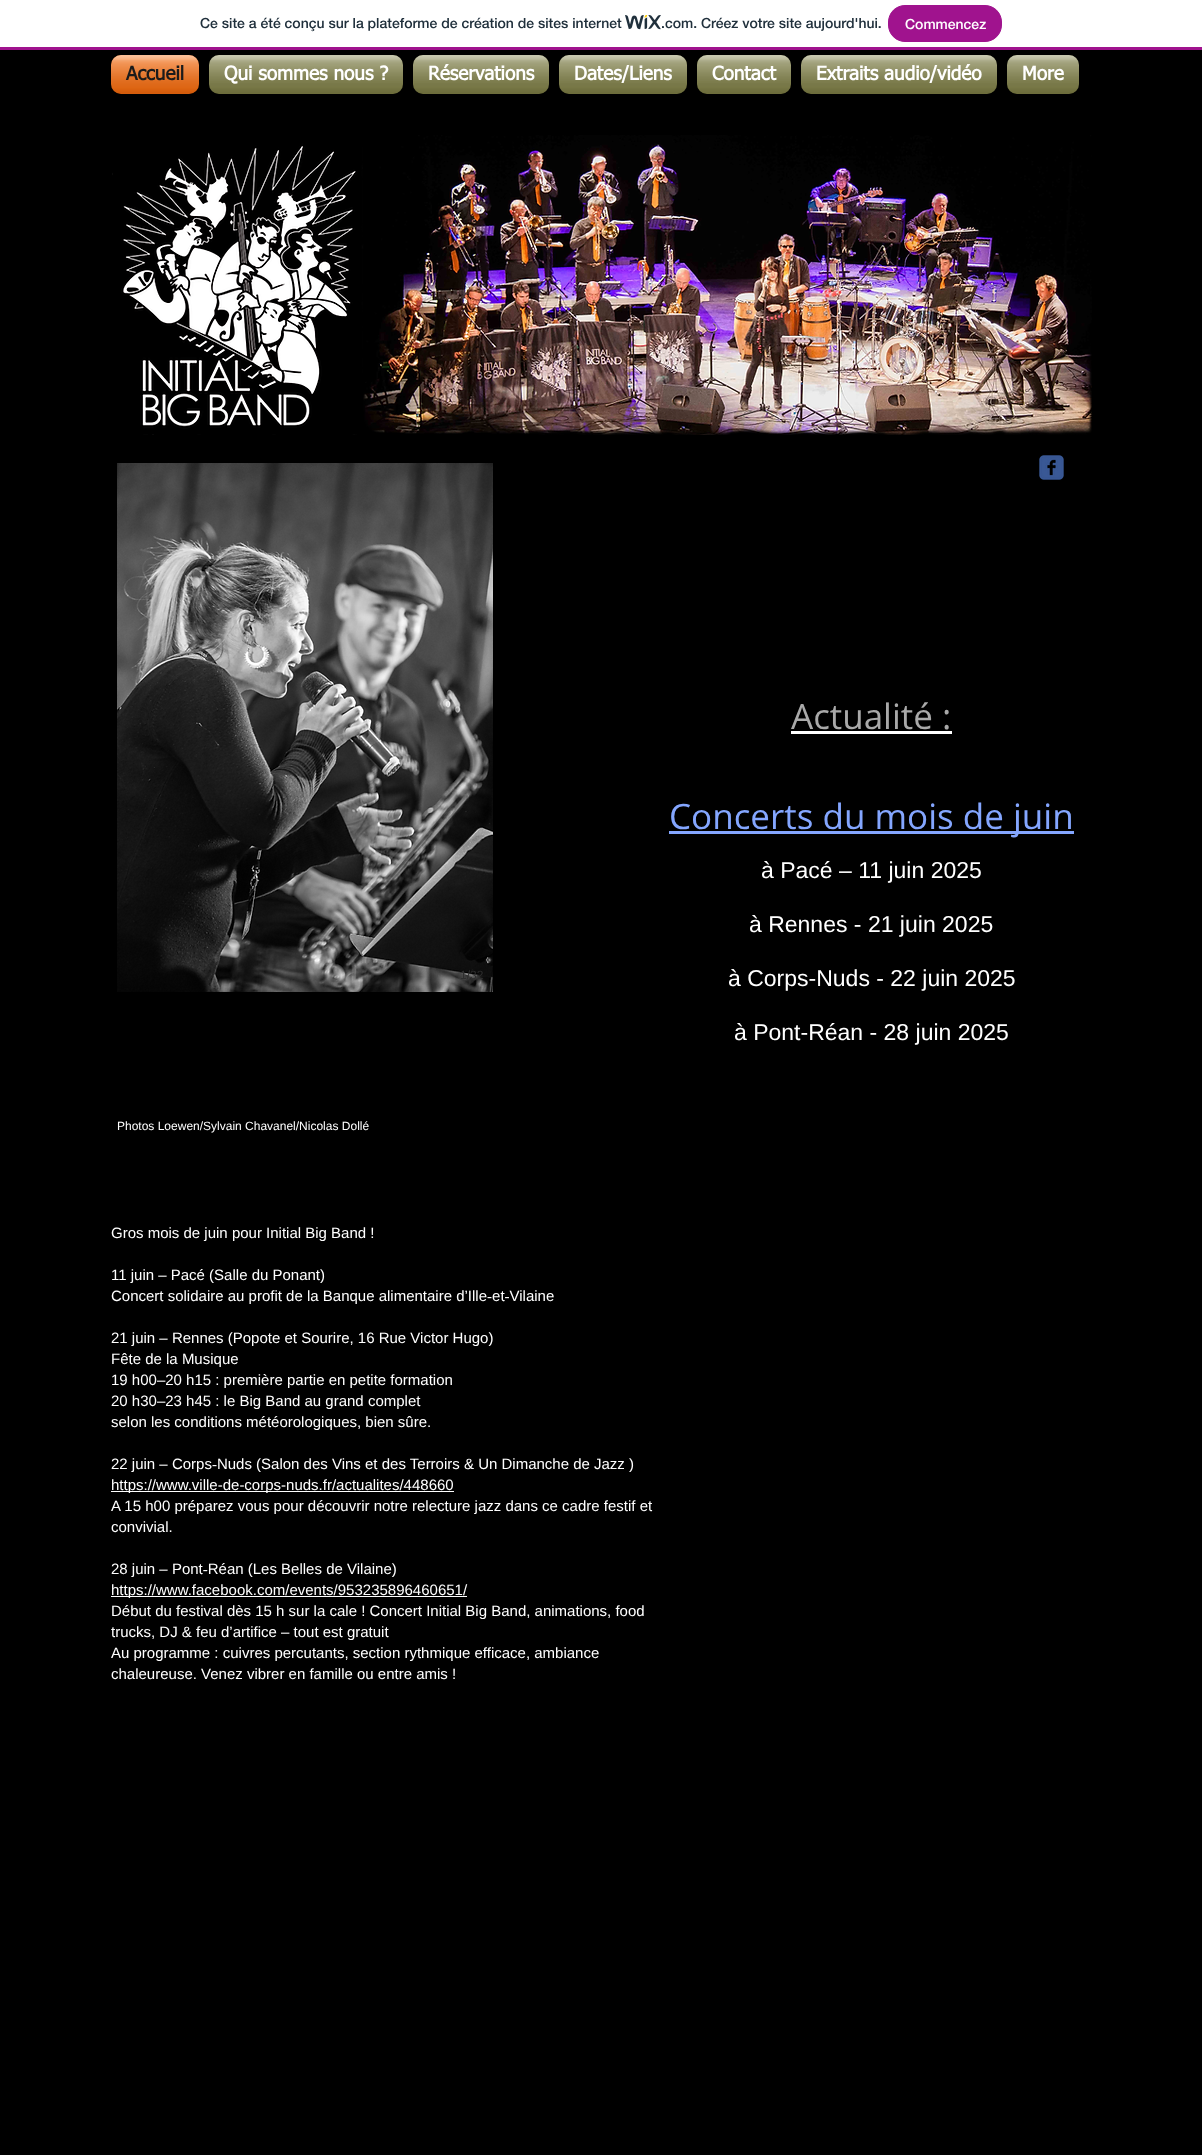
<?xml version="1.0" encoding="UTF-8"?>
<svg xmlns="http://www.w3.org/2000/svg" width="1202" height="2155">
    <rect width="100%" height="100%" fill="#FFFFFF"/>
    <rect x="0" y="47" width="1202" height="3" fill="#A0138E"/>
    <text x="200" y="28" font-family="'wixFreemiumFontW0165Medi'" font-size="14" font-weight="500" fill="#20303C">Ce site a été conçu sur la plateforme de création de sites internet</text>
    <image x="625" y="15" width="36" height="15" href="img_01.png"/>
    <text x="661" y="28" font-family="'wixFreemiumFontW0165Medi'" font-size="14" font-weight="500" fill="#20303C">.com. Créez votre site aujourd'hui.</text>
    <rect x="888.5" y="5.5" width="113" height="36" rx="16.5" fill="#A0138E" stroke="#A0138E"/>
    <text x="905" y="29" font-family="'wixFreemiumFontW0165Medi'" font-size="14" font-weight="500" fill="#FFFFFF">Commencez</text>
    <rect x="0" y="50" width="1202" height="2105" fill="#000000"/>
    <rect x="111" y="55" width="88" height="39" rx="10" fill="#F76401"/>
    <image x="111" y="55" width="88" height="39" href="img_02.png"/>
    <image x="111" y="60" width="88" height="34" href="img_03.png"/>
    <text x="126" y="80" font-family="tahoma" font-size="19" font-weight="700" fill="#1B1B1B">Accueil</text>
    <rect x="209" y="55" width="194" height="39" rx="10" fill="#78783C"/>
    <image x="209" y="55" width="194" height="39" href="img_04.png"/>
    <image x="209" y="60" width="194" height="34" href="img_05.png"/>
    <text x="224" y="80" font-family="tahoma" font-size="19" font-weight="700" fill="#FFFFFF">Qui sommes nous ?</text>
    <rect x="413" y="55" width="136" height="39" rx="10" fill="#78783C"/>
    <image x="413" y="55" width="136" height="39" href="img_06.png"/>
    <image x="413" y="60" width="136" height="34" href="img_07.png"/>
    <text x="428" y="80" font-family="tahoma" font-size="19" font-weight="700" fill="#FFFFFF">Réservations</text>
    <rect x="559" y="55" width="128" height="39" rx="10" fill="#78783C"/>
    <image x="559" y="55" width="128" height="39" href="img_08.png"/>
    <image x="559" y="60" width="128" height="34" href="img_09.png"/>
    <text x="574" y="80" font-family="tahoma" font-size="19" font-weight="700" fill="#FFFFFF">Dates/Liens</text>
    <rect x="697" y="55" width="94" height="39" rx="10" fill="#78783C"/>
    <image x="697" y="55" width="94" height="39" href="img_10.png"/>
    <image x="697" y="60" width="94" height="34" href="img_11.png"/>
    <text x="712" y="80" font-family="tahoma" font-size="19" font-weight="700" fill="#FFFFFF">Contact</text>
    <rect x="801" y="55" width="196" height="39" rx="10" fill="#78783C"/>
    <image x="801" y="55" width="196" height="39" href="img_12.png"/>
    <image x="801" y="60" width="196" height="34" href="img_13.png"/>
    <text x="816" y="80" font-family="tahoma" font-size="19" font-weight="700" fill="#FFFFFF">Extraits audio/vidéo</text>
    <rect x="1007" y="55" width="72" height="39" rx="10" fill="#78783C"/>
    <image x="1007" y="55" width="72" height="39" href="img_14.png"/>
    <image x="1007" y="60" width="72" height="34" href="img_15.png"/>
    <text x="1022" y="80" font-family="tahoma" font-size="19" font-weight="700" fill="#FFFFFF">More</text>
    <image x="112" y="135" width="980" height="300" href="img_16.png"/>
    <image x="1039" y="455" width="25" height="25" href="img_17.png"/>
    <image x="117" y="463" width="376" height="529" href="img_18.png"/>
    <text x="460" y="979" font-family="Liberation Sans" font-size="12" fill="#2E2E2E">1/32</text>
    <text x="791" y="729" font-family="Open Sans" font-size="35" fill="#A9A9A9">Actualité :</text>
    <rect x="791" y="731" width="161" height="3" fill="#FFFFFF"/>
    <rect x="669" y="831" width="405" height="3" fill="#84A6FF"/>
    <text x="669" y="829" font-family="Open Sans" font-size="35" fill="#84A6FF">Concerts du mois de juin</text>
    <text x="761" y="878" font-family="Liberation Sans" font-size="23" fill="#FFFFFF">à Pacé – 11 juin 2025</text>
    <text x="749" y="932" font-family="Liberation Sans" font-size="23" fill="#FFFFFF">à Rennes - 21 juin 2025</text>
    <text x="728" y="986" font-family="Liberation Sans" font-size="23" fill="#FFFFFF">à Corps-Nuds - 22 juin 2025</text>
    <text x="734" y="1040" font-family="Liberation Sans" font-size="23" fill="#FFFFFF">à Pont-Réan - 28 juin 2025</text>
    <text x="117" y="1130" font-family="Liberation Sans" font-size="12" fill="#FFFFFF">Photos Loewen/Sylvain Chavanel/Nicolas Dollé</text>
    <text x="111" y="1238" font-family="Liberation Sans" font-size="15" fill="#FFFFFF">Gros mois de juin pour Initial Big Band !</text>
    <text font-family="Liberation Sans" font-size="15" fill="#FFFFFF">
        <tspan x="111" y="1280">11 juin – Pacé (Salle du Ponant)</tspan>
        <tspan x="111" y="1301">Concert solidaire au profit de la Banque alimentaire d’Ille‑et‑Vilaine</tspan>
    </text>
    <text font-family="Liberation Sans" font-size="15" fill="#FFFFFF">
        <tspan x="111" y="1343">21 juin – Rennes (Popote et Sourire, 16 Rue Victor Hugo)</tspan>
        <tspan x="111" y="1364">Fête de la Musique</tspan>
        <tspan x="111" y="1385">19 h00–20 h15 : première partie en petite formation</tspan>
        <tspan x="111" y="1406">20 h30–23 h45 : le Big Band au grand complet</tspan>
        <tspan x="111" y="1427">selon les conditions météorologiques, bien sûre.</tspan>
    </text>
    <text x="111" y="1469" font-family="Liberation Sans" font-size="15" fill="#FFFFFF">22 juin – Corps‑Nuds (Salon des Vins et des Terroirs &amp; Un Dimanche de Jazz )</text>
    <rect x="111" y="1491" width="343" height="1" fill="#FFFFFF"/>
    <text font-family="Liberation Sans" font-size="15" fill="#FFFFFF">
        <tspan x="111" y="1490">https://www.ville-de-corps-nuds.fr/actualites/448660</tspan>
        <tspan x="111" y="1511">A 15 h00 préparez vous pour découvrir notre relecture jazz dans ce cadre festif et</tspan>
        <tspan x="111" y="1532">convivial.</tspan>
    </text>
    <text x="111" y="1574" font-family="Liberation Sans" font-size="15" fill="#FFFFFF">28 juin – Pont‑Réan (Les Belles de Vilaine)</text>
    <rect x="111" y="1596" width="356" height="1" fill="#FFFFFF"/>
    <text font-family="Liberation Sans" font-size="15" fill="#FFFFFF">
        <tspan x="111" y="1595">https://www.facebook.com/events/953235896460651/</tspan>
        <tspan x="111" y="1616">Début du festival dès 15 h sur la cale ! Concert Initial Big Band, animations, food</tspan>
        <tspan x="111" y="1637">trucks, DJ &amp; feu d’artifice – tout est gratuit</tspan>
        <tspan x="111" y="1658">Au programme : cuivres percutants, section rythmique efficace, ambiance</tspan>
        <tspan x="111" y="1679">chaleureuse. Venez vibrer en famille ou entre amis !</tspan>
    </text>
</svg>
